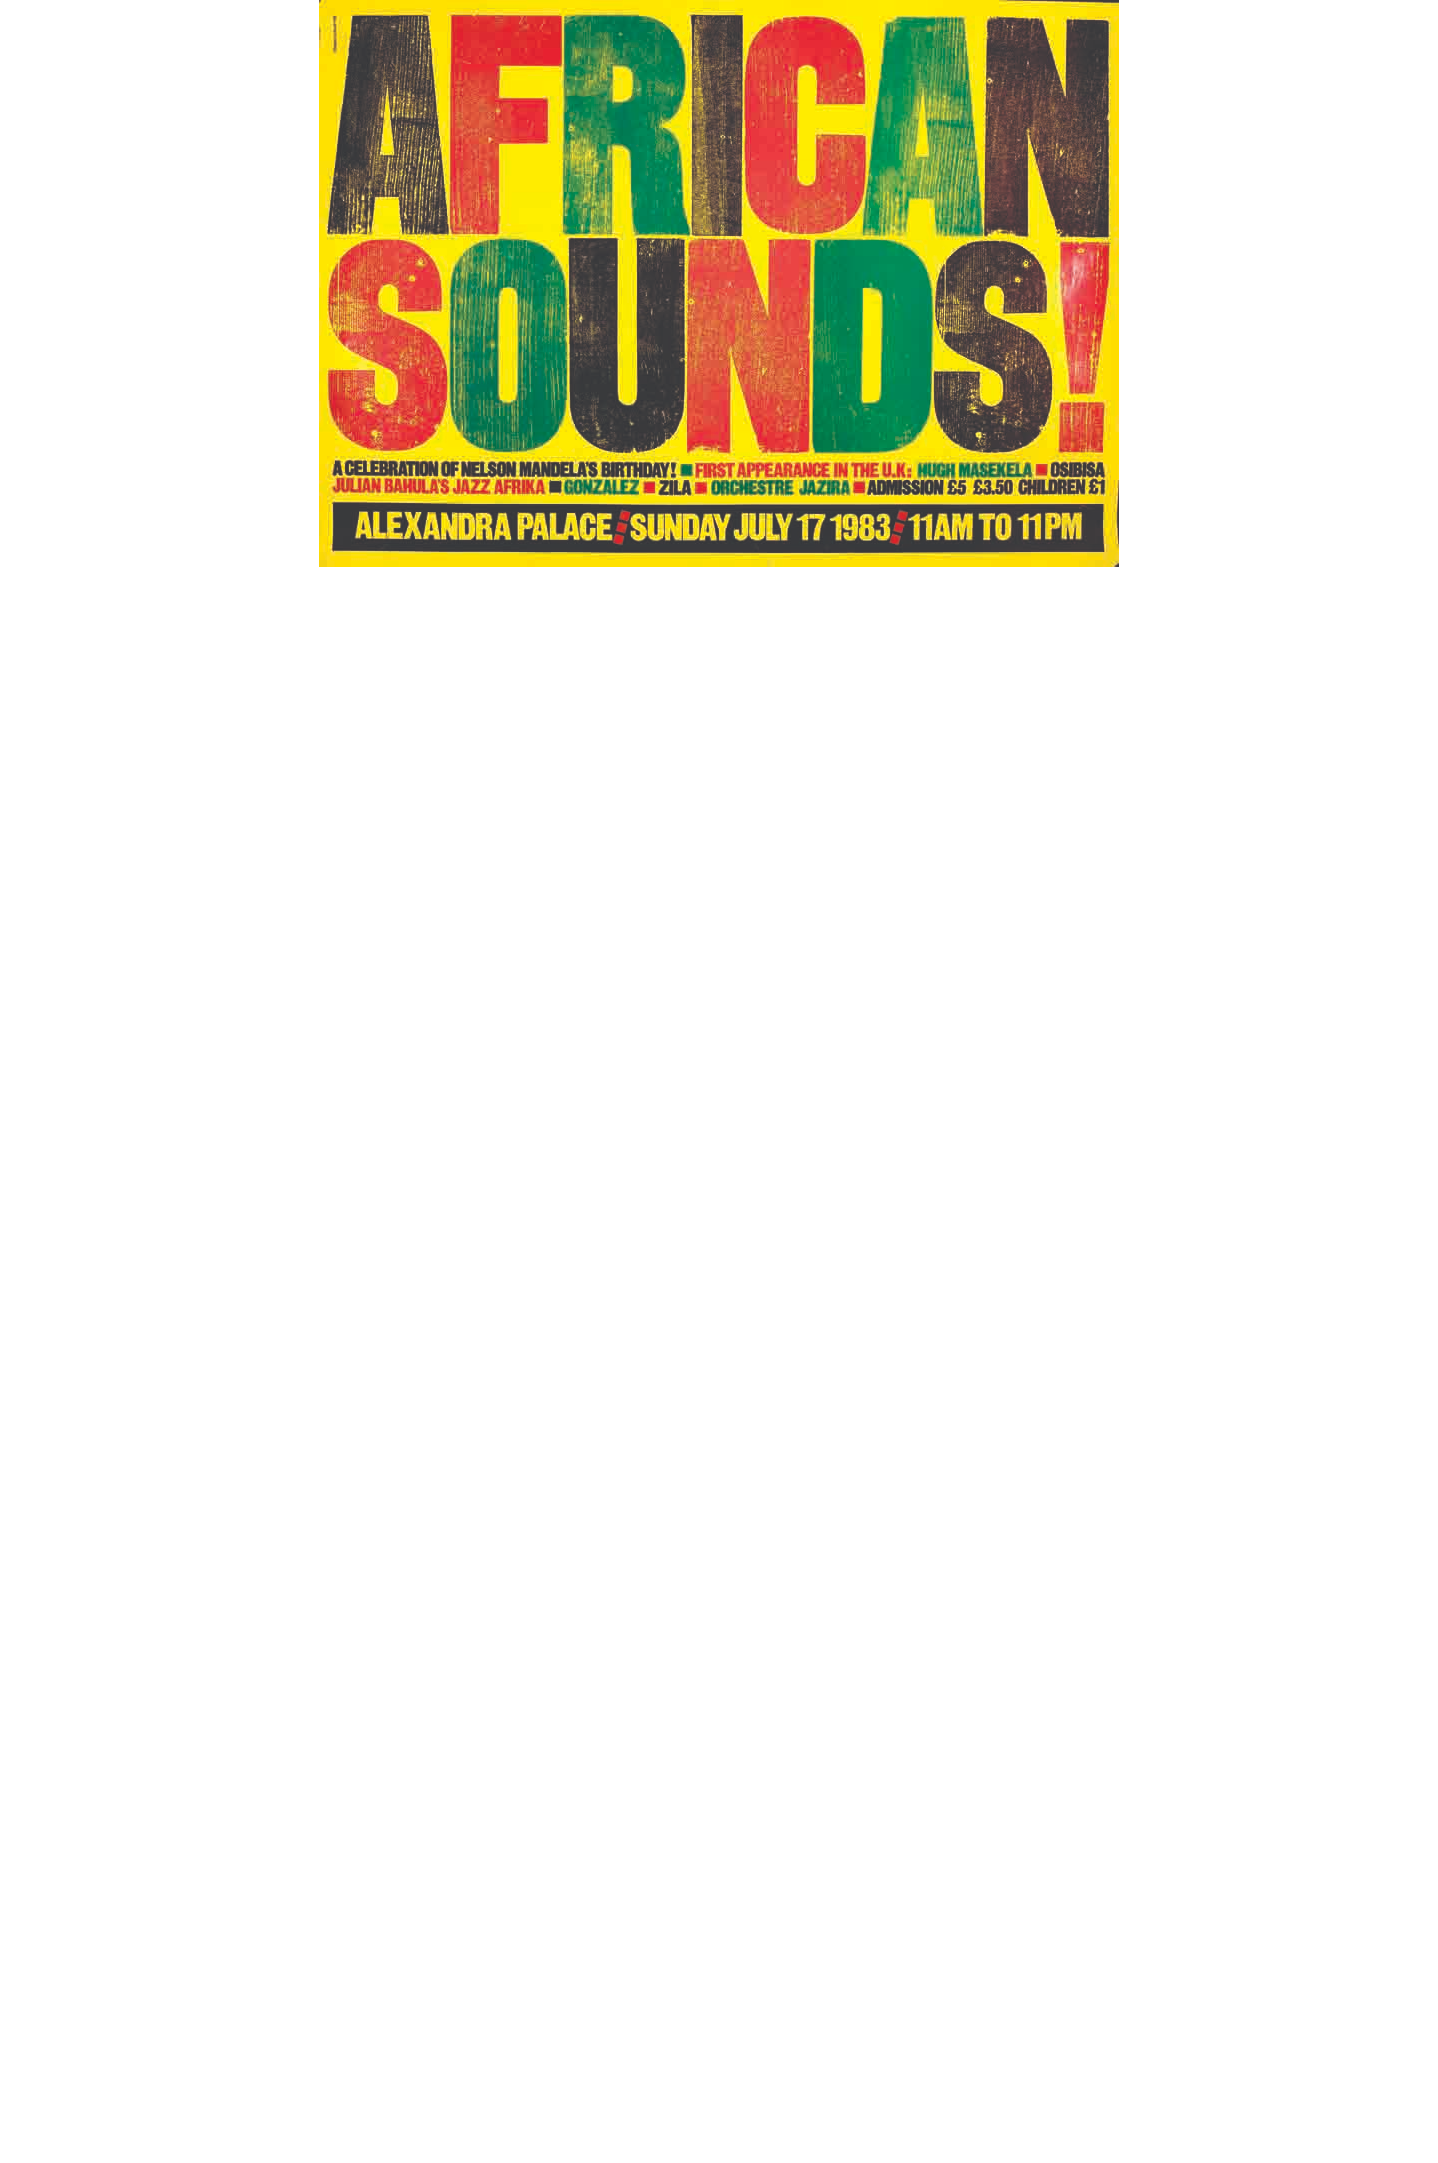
<?xml version="1.0" encoding="UTF-8"?>
<svg xmlns="http://www.w3.org/2000/svg" width="1438" height="2163">
    <rect width="100%" height="100%" fill="#FFFFFF"/>
    <image x="319" y="0" width="800" height="567" href="img_01.png"/>
</svg>
